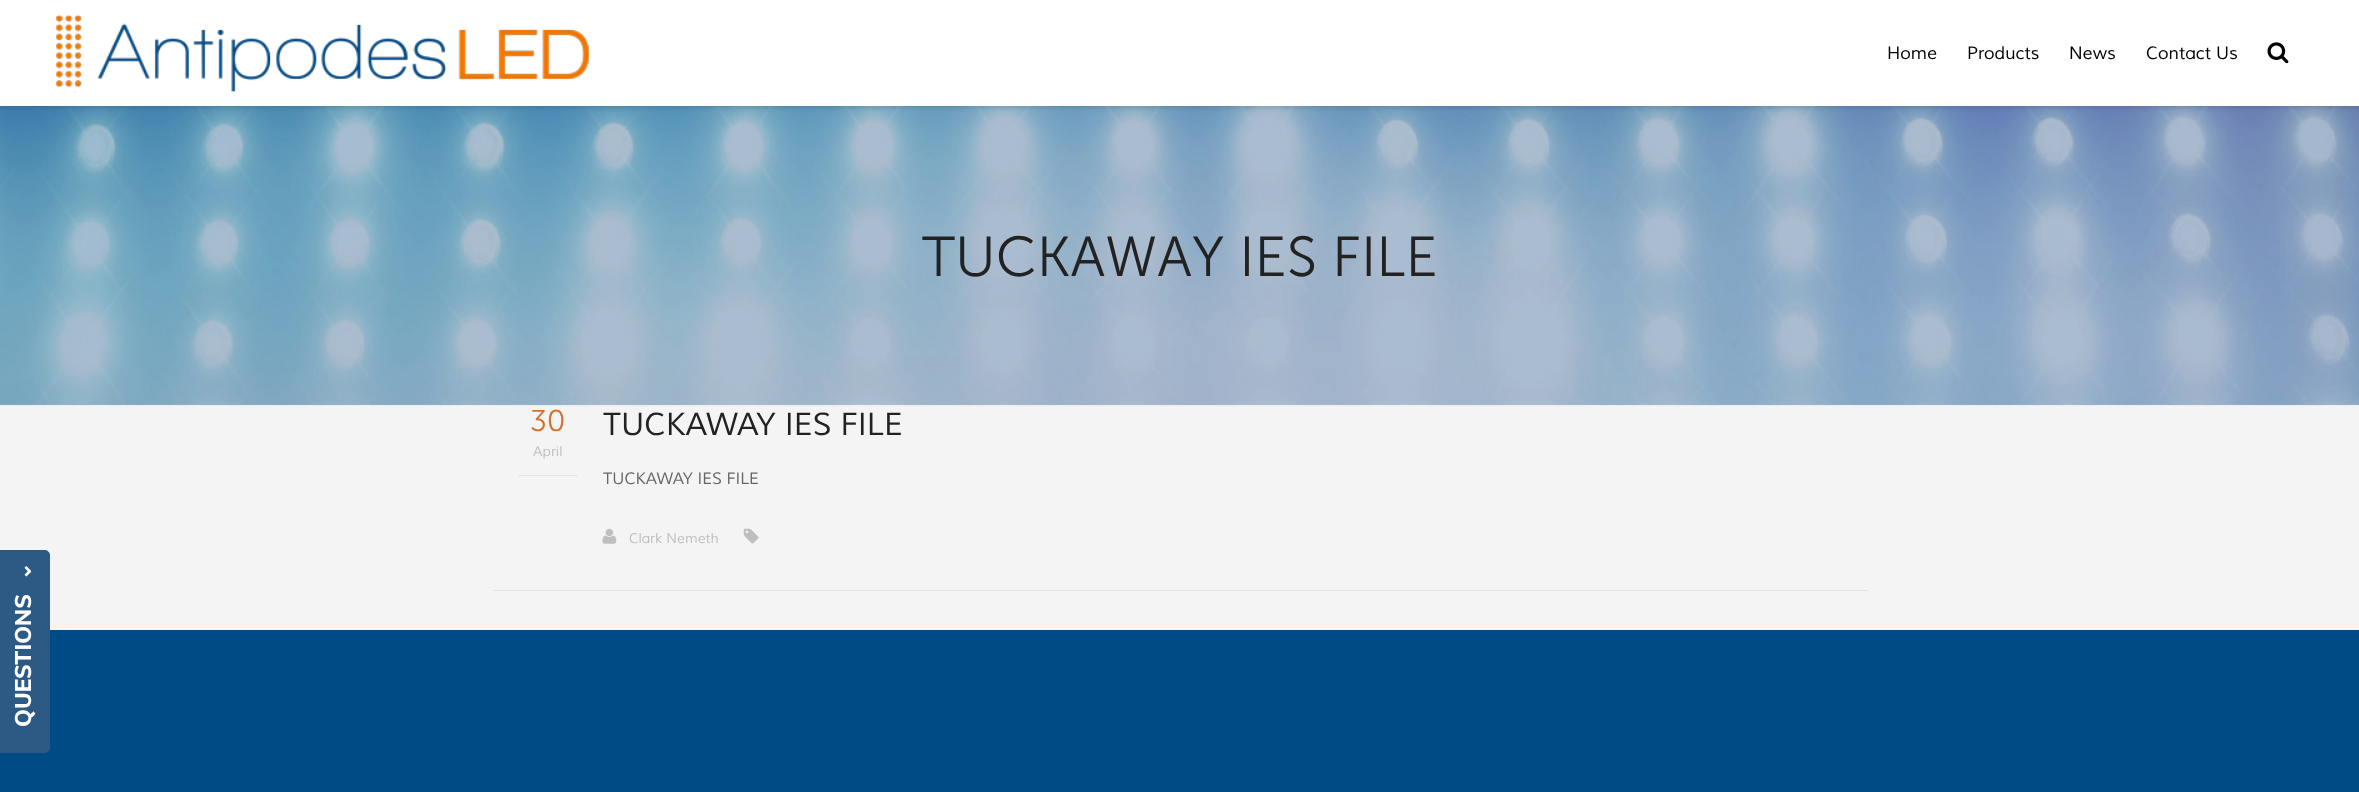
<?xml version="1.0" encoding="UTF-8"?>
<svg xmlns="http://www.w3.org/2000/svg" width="2359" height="792">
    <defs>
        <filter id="blur1" x="-50%" y="-200%" width="200%" height="500%"><feGaussianBlur stdDeviation="2"/></filter>
    </defs>
    <rect width="100%" height="100%" fill="#F4F4F4"/>
    <image x="0" y="106" width="2359" height="300" href="img_03.png"/>
    <rect x="0" y="1" width="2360" height="107" fill="#000000" fill-opacity="0.11" filter="url(#blur1)"/>
    <rect x="0" y="0" width="2359" height="106" fill="#FFFFFF"/>
    <image x="56" y="14" width="533" height="78" href="img_01.png"/>
    <text x="1887" y="59" font-family="Muli" font-size="17.5" font-style="italic" fill="#000000">Home</text>
    <text x="1967" y="59" font-family="Muli" font-size="17.5" font-style="italic" fill="#000000">Products</text>
    <text x="2069" y="59" font-family="Muli" font-size="17.5" font-style="italic" fill="#000000">News</text>
    <text x="2146" y="59" font-family="Muli" font-size="17.5" font-style="italic" fill="#000000">Contact Us</text>
    <image x="2267" y="42" width="22" height="22" href="img_02.png"/>
    <text x="922" y="276" font-family="Museo Sans" font-size="56.25" font-weight="300" fill="#222222">TUCKAWAY IES FILE</text>
    <rect x="493" y="590" width="1375" height="1" fill="#E4E4E4"/>
    <text x="530" y="431" font-family="Museo Sans" font-size="30" font-weight="300" fill="#D96F26">30</text>
    <text x="533" y="456" font-family="Muli" font-size="13.75" font-style="italic" fill="#BFBFBF">April</text>
    <rect x="518" y="475" width="60" height="1" fill="#E4E4E4"/>
    <text x="603" y="435" font-family="Muli" font-size="31.25" font-style="italic" fill="#222222">TUCKAWAY IES FILE</text>
    <text x="603" y="484" font-family="Muli" font-size="16.25" font-style="italic" fill="#666666">TUCKAWAY IES FILE</text>
    <image x="602" y="528" width="15" height="16" href="img_04.png"/>
    <text x="629" y="543" font-family="Muli" font-size="13.75" font-style="italic" fill="#BFBFBF">Clark Nemeth</text>
    <image x="743" y="528" width="16" height="16" href="img_05.png"/>
    <rect x="0" y="630" width="2359" height="162" fill="#004B85"/>
    <path d="M -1.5 550.5 H 45 C 47.5 550.5 49.5 552.5 49.5 555 V 748 C 49.5 750.5 47.5 752.5 45 752.5 H -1.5 Z" fill="#2C5A85" stroke="#2C5A85"/>
    <text x="31" y="581" transform="rotate(-90 31 581)" font-family="DejaVu Sans" font-size="22.5" font-weight="700" fill="#FFFFFF">⌄</text>
    <text x="31" y="727" transform="rotate(-90 31 727)" font-family="Muli" font-size="22.5" font-weight="800" fill="#FFFFFF">QUESTIONS</text>
</svg>
